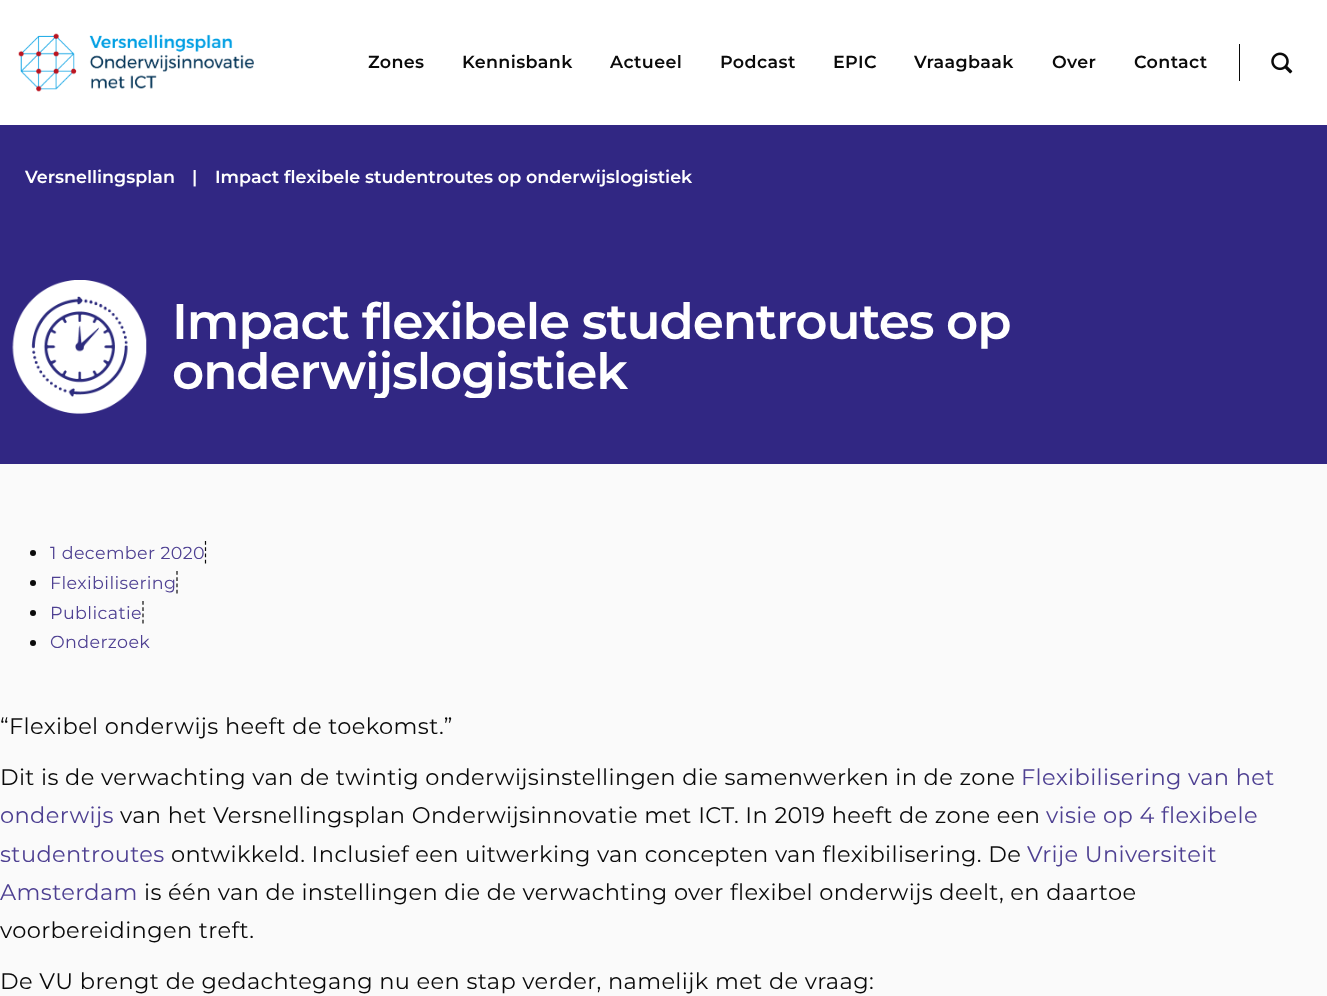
<?xml version="1.0" encoding="UTF-8"?>
<svg xmlns="http://www.w3.org/2000/svg" width="1327" height="996">
    <defs>
        <clipPath id="clip1"><rect x="171" y="298" width="1144" height="100"/></clipPath>
    </defs>
    <rect width="100%" height="100%" fill="#FFFFFF"/>
    <image x="18" y="33" width="236" height="59" href="img_01.png"/>
    <text x="368" y="68" font-family="Montserrat" font-size="17.5" font-weight="100" letter-spacing="0.38" fill="#0A0A0A">Zones</text>
    <text x="462" y="68" font-family="Montserrat" font-size="17.5" font-weight="100" letter-spacing="0.38" fill="#0A0A0A">Kennisbank</text>
    <text x="610" y="68" font-family="Montserrat" font-size="17.5" font-weight="100" letter-spacing="0.38" fill="#0A0A0A">Actueel</text>
    <text x="720" y="68" font-family="Montserrat" font-size="17.5" font-weight="100" letter-spacing="0.38" fill="#0A0A0A">Podcast</text>
    <text x="833" y="68" font-family="Montserrat" font-size="17.5" font-weight="100" letter-spacing="0.38" fill="#0A0A0A">EPIC</text>
    <text x="914" y="68" font-family="Montserrat" font-size="17.5" font-weight="100" letter-spacing="0.38" fill="#0A0A0A">Vraagbaak</text>
    <text x="1052" y="68" font-family="Montserrat" font-size="17.5" font-weight="100" letter-spacing="0.38" fill="#0A0A0A">Over</text>
    <text x="1134" y="68" font-family="Montserrat" font-size="17.5" font-weight="100" letter-spacing="0.38" fill="#0A0A0A">Contact</text>
    <rect x="1239" y="44" width="1" height="37" fill="#0A0A0A"/>
    <image x="1271" y="52" width="22" height="22" href="img_02.png"/>
    <rect x="0" y="125" width="1327" height="339" fill="#312783"/>
    <text x="25" y="183" font-family="Montserrat" font-size="17.5" font-weight="100" fill="#FFFFFF">Versnellingsplan</text>
    <text x="192" y="183" font-family="Montserrat" font-size="17.5" font-weight="100" fill="#FFFFFF">|</text>
    <text x="215" y="183" font-family="Montserrat" font-size="17.5" font-weight="100" fill="#FFFFFF">Impact flexibele studentroutes op onderwijslogistiek</text>
    <image x="12" y="280" width="135" height="134" href="img_03.png"/>
    <text x="172" y="339" font-family="Montserrat" font-size="50" font-weight="100" letter-spacing="-1.1" fill="#FFFFFF">Impact flexibele studentroutes op</text>
    <g clip-path="url(#clip1)">
        <text x="172" y="389" font-family="Montserrat" font-size="50" font-weight="100" letter-spacing="-1.1" fill="#FFFFFF">onderwijslogistiek</text>
    </g>
    <rect x="0" y="464" width="1327" height="532" fill="#FAFAFA"/>
    <circle cx="33" cy="553" r="3" fill="#0A0A0A"/>
    <text x="50" y="559" font-family="Montserrat" font-size="17.5" letter-spacing="0.38" fill="#4E4092">1 december 2020</text>
    <path d="M 205.5 541 V 564" fill="none" stroke="#0A0A0A" stroke-width="1.2" stroke-dasharray="3.75 2.5"/>
    <circle cx="33" cy="583" r="3" fill="#0A0A0A"/>
    <text x="50" y="589" font-family="Montserrat" font-size="17.5" letter-spacing="0.38" fill="#4E4092">Flexibilisering</text>
    <path d="M 177 571 V 594" fill="none" stroke="#0A0A0A" stroke-width="1.2" stroke-dasharray="3.75 2.5"/>
    <circle cx="33" cy="613" r="3" fill="#0A0A0A"/>
    <text x="50" y="619" font-family="Montserrat" font-size="17.5" letter-spacing="0.38" fill="#4E4092">Publicatie</text>
    <path d="M 143 601 V 624" fill="none" stroke="#0A0A0A" stroke-width="1.2" stroke-dasharray="3.75 2.5"/>
    <circle cx="33" cy="643" r="3" fill="#0A0A0A"/>
    <text x="50" y="648" font-family="Montserrat" font-size="17.5" letter-spacing="0.38" fill="#4E4092">Onderzoek</text>
    <text x="0" y="734" font-family="Montserrat" font-size="22.5" letter-spacing="0.38" fill="#0A0A0A">“Flexibel onderwijs heeft de toekomst.”</text>
    <text x="0" y="785" font-family="Montserrat" font-size="22.5" letter-spacing="0.38" fill="#0A0A0A">Dit is de verwachting van de twintig onderwijsinstellingen die samenwerken in de zone</text>
    <text x="1021" y="785" font-family="Montserrat" font-size="22.5" letter-spacing="0.38" fill="#4E4092">Flexibilisering van het</text>
    <text x="0" y="823" font-family="Montserrat" font-size="22.5" letter-spacing="0.38" fill="#4E4092">onderwijs</text>
    <text x="120" y="823" font-family="Montserrat" font-size="22.5" letter-spacing="0.38" fill="#0A0A0A">van het Versnellingsplan Onderwijsinnovatie met ICT. In 2019 heeft de zone een</text>
    <text x="1046" y="823" font-family="Montserrat" font-size="22.5" letter-spacing="0.38" fill="#4E4092">visie op 4 flexibele</text>
    <text x="0" y="862" font-family="Montserrat" font-size="22.5" letter-spacing="0.38" fill="#4E4092">studentroutes</text>
    <text x="171" y="862" font-family="Montserrat" font-size="22.5" letter-spacing="0.38" fill="#0A0A0A">ontwikkeld. Inclusief een uitwerking van concepten van flexibilisering. De</text>
    <text x="1027" y="862" font-family="Montserrat" font-size="22.5" letter-spacing="0.38" fill="#4E4092">Vrije Universiteit</text>
    <text x="0" y="900" font-family="Montserrat" font-size="22.5" letter-spacing="0.38" fill="#4E4092">Amsterdam</text>
    <text x="144" y="900" font-family="Montserrat" font-size="22.5" letter-spacing="0.38" fill="#0A0A0A">is één van de instellingen die de verwachting over flexibel onderwijs deelt, en daartoe</text>
    <text x="0" y="938" font-family="Montserrat" font-size="22.5" letter-spacing="0.38" fill="#0A0A0A">voorbereidingen treft.</text>
    <text x="0" y="989" font-family="Montserrat" font-size="22.5" letter-spacing="0.38" fill="#0A0A0A">De VU brengt de gedachtegang nu een stap verder, namelijk met de vraag:</text>
</svg>
